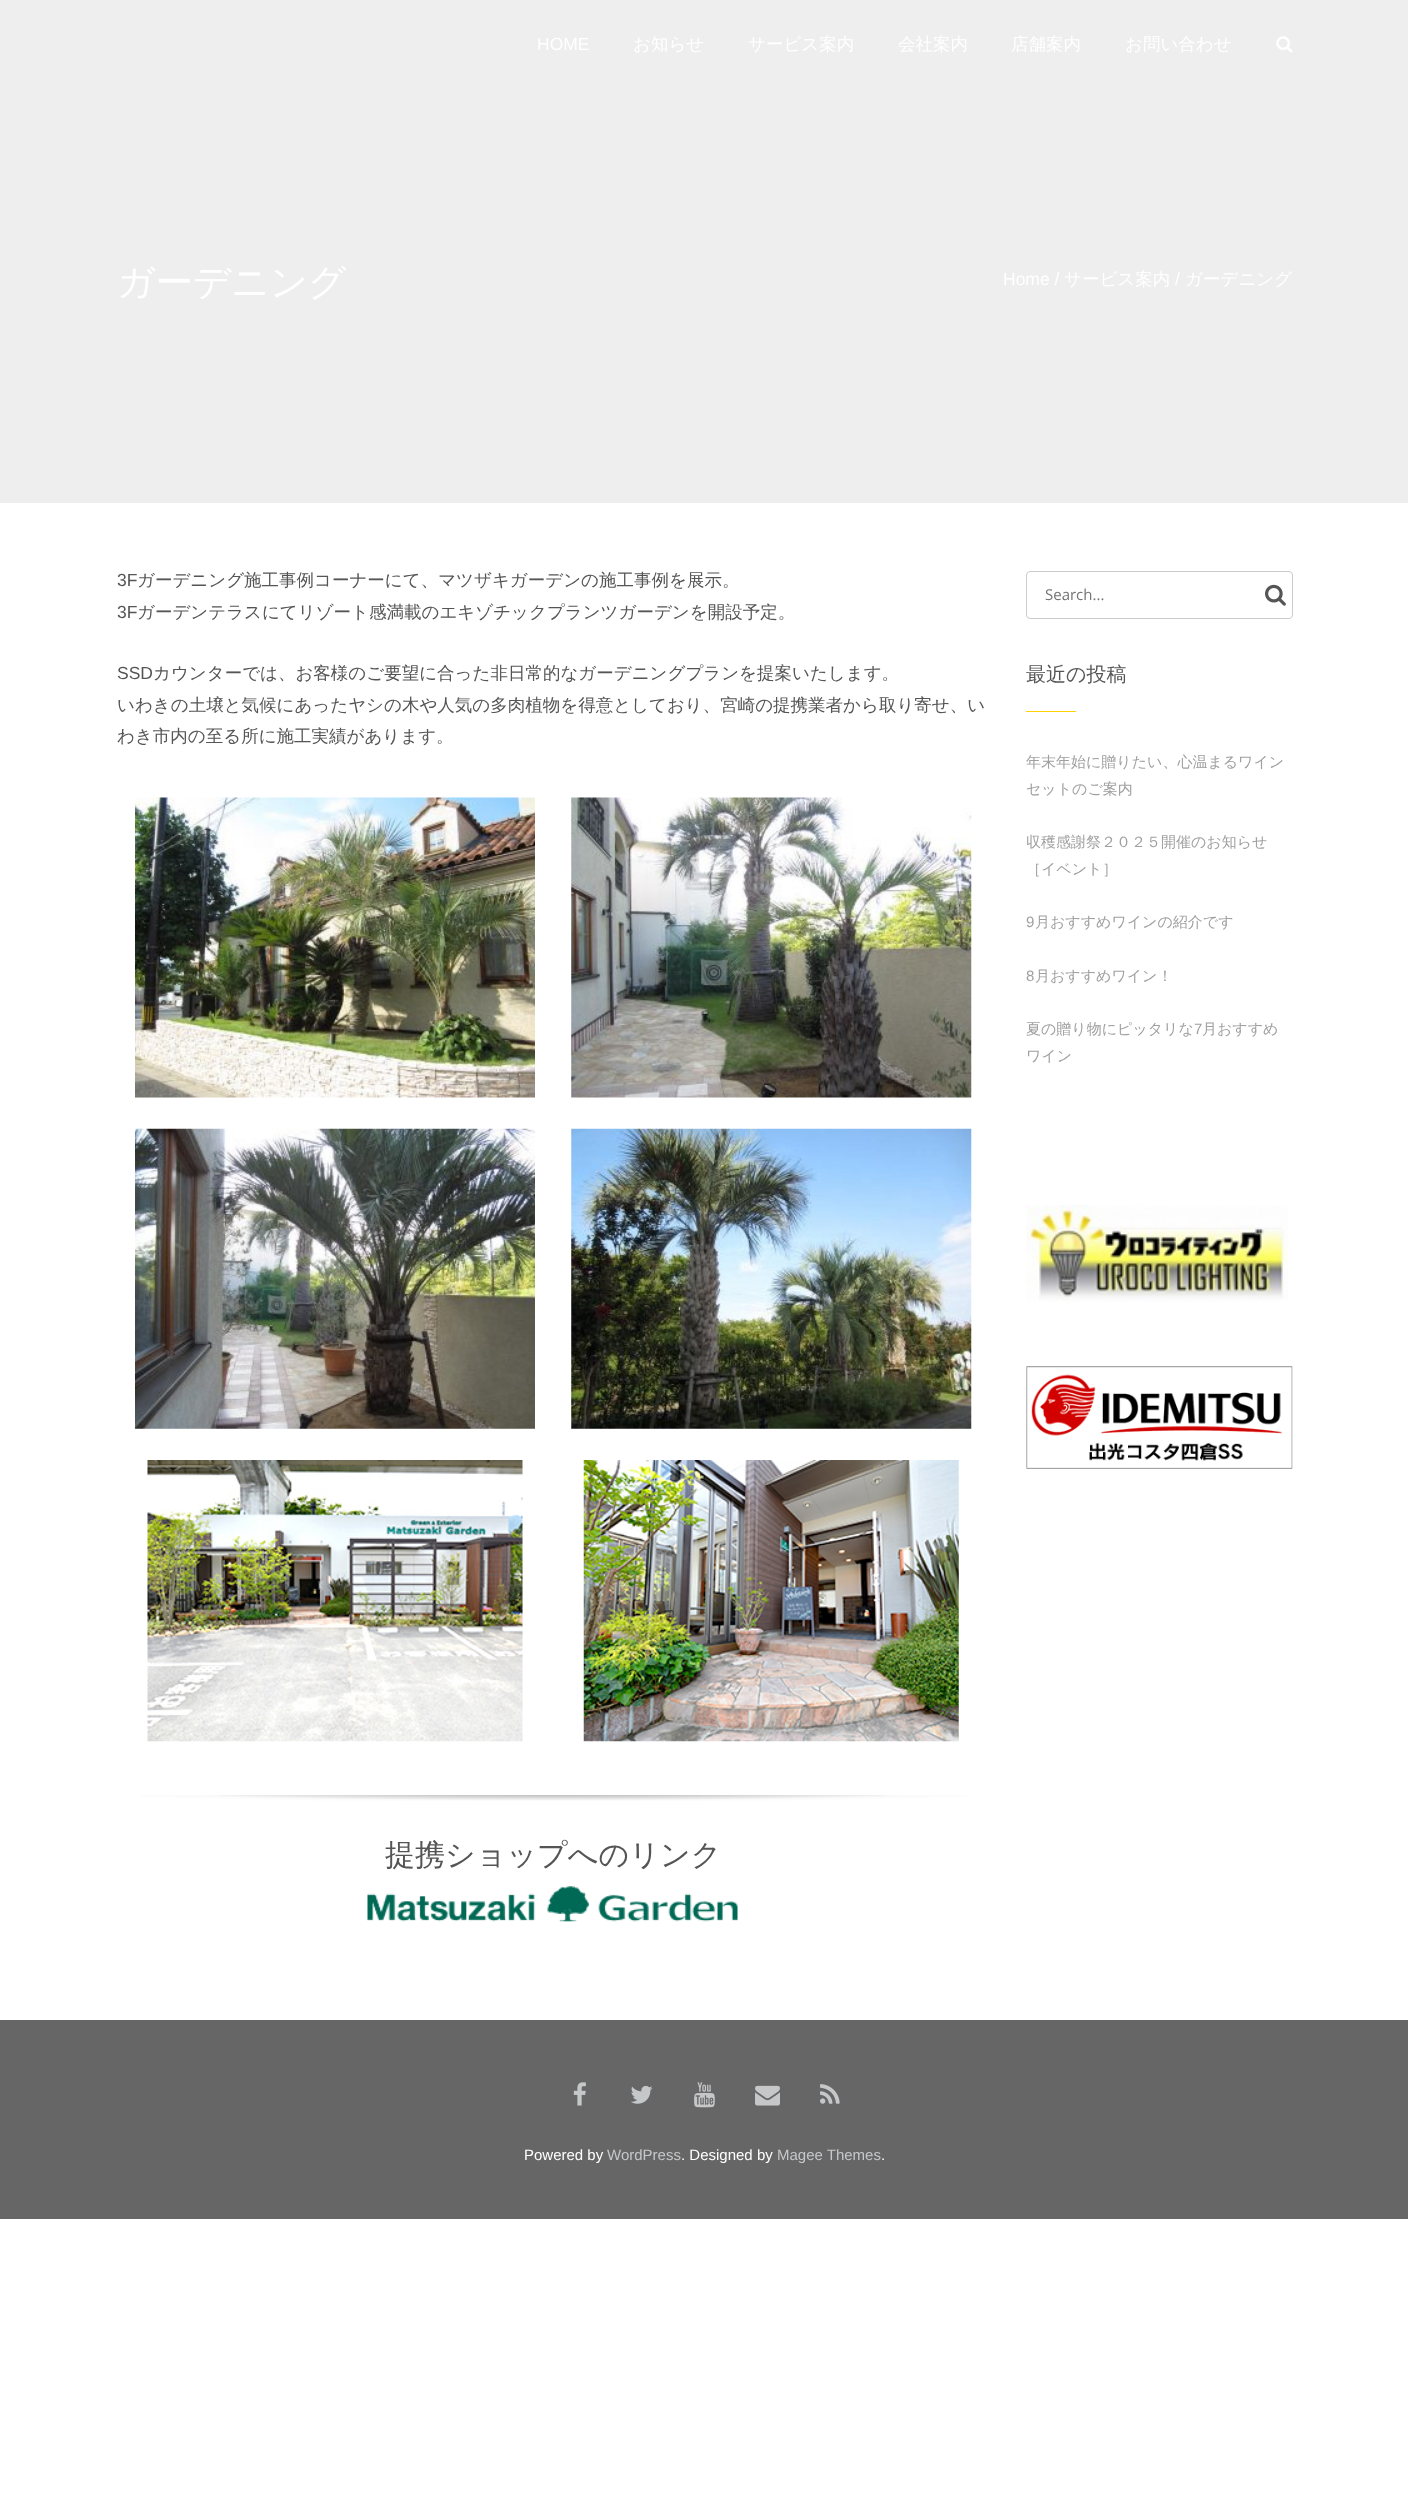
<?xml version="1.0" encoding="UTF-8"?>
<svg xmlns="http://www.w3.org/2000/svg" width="1408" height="2515">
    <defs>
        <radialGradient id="g1" gradientUnits="userSpaceOnUse" cx="0" cy="0" r="1" gradientTransform="matrix(616 0 0 13 553 1792)"><stop offset="0" stop-color="#E6E6E6"/><stop offset="0.8" stop-color="#FFFFFF"/></radialGradient>
        <radialGradient id="g2" gradientUnits="userSpaceOnUse" cx="0" cy="0" r="1" gradientTransform="matrix(616 0 0 13 553 1792)"><stop offset="0" stop-color="#000000" stop-opacity="0.3"/><stop offset="0.65" stop-color="#000000" stop-opacity="0"/></radialGradient>
    </defs>
    <rect width="100%" height="100%" fill="#FFFFFF"/>
    <rect x="0" y="0" width="1408" height="503" fill="#EEEEEE"/>
    <text x="537" y="50" font-family="Liberation Sans" font-size="17.5" fill="#FFFFFF">HOME</text>
    <text x="633" y="50" font-family="WenQuanYi Zen Hei" font-size="17.5" font-weight="500" fill="#FFFFFF">お知らせ</text>
    <text x="748" y="50" font-family="WenQuanYi Zen Hei" font-size="17.5" font-weight="500" fill="#FFFFFF">サービス案内</text>
    <text x="898" y="50" font-family="WenQuanYi Zen Hei" font-size="17.5" font-weight="500" fill="#FFFFFF">会社案内</text>
    <text x="1011" y="50" font-family="WenQuanYi Zen Hei" font-size="17.5" font-weight="500" fill="#FFFFFF">店舗案内</text>
    <text x="1125" y="50" font-family="WenQuanYi Zen Hei" font-size="17.5" font-weight="500" fill="#FFFFFF">お問い合わせ</text>
    <image x="1276" y="36" width="17" height="17" href="img_01.png"/>
    <text x="117" y="295" font-family="WenQuanYi Zen Hei" font-size="37.5" font-weight="500" fill="#FFFFFF">ガーデニング</text>
    <text x="1003" y="285" font-family="Liberation Sans" font-size="17.5" fill="#FFFFFF">Home /</text>
    <text x="1064" y="285" font-family="WenQuanYi Zen Hei" font-size="17.5" font-weight="500" fill="#FFFFFF">サービス案内</text>
    <text x="1175" y="285" font-family="Liberation Sans" font-size="17.5" fill="#FFFFFF">/</text>
    <text x="1185" y="285" font-family="WenQuanYi Zen Hei" font-size="17.5" font-weight="500" fill="#FFFFFF">ガーデニング</text>
    <text x="117" y="586" font-family="Liberation Sans" font-size="17.5" fill="#555555">3F</text>
    <text x="137" y="586" font-family="WenQuanYi Zen Hei" font-size="17.5" font-weight="500" fill="#555555">ガーデニング施工事例コーナーにて、マツザキガーデンの施工事例を展示。</text>
    <text x="117" y="618" font-family="Liberation Sans" font-size="17.5" fill="#555555">3F</text>
    <text x="137" y="618" font-family="WenQuanYi Zen Hei" font-size="17.5" font-weight="500" fill="#555555">ガーデンテラスにてリゾート感満載のエキゾチックプランツガーデンを開設予定。</text>
    <text x="117" y="679" font-family="Liberation Sans" font-size="17.5" fill="#555555">SSD</text>
    <text x="153" y="679" font-family="WenQuanYi Zen Hei" font-size="17.5" font-weight="500" fill="#555555">カウンターでは、お客様のご要望に合った非日常的なガーデニングプランを提案いたします。</text>
    <text font-family="WenQuanYi Zen Hei" font-size="17.5" font-weight="500" fill="#555555">
        <tspan x="117" y="711">いわきの土壌と気候にあったヤシの木や人気の多肉植物を得意としており、宮崎の提携業者から取り寄せ、い</tspan>
        <tspan x="117" y="742">わき市内の至る所に施工実績があります。</tspan>
    </text>
    <image x="135" y="797" width="400" height="301" href="img_02.png"/>
    <image x="571" y="797" width="401" height="301" href="img_03.png"/>
    <image x="135" y="1128" width="400" height="301" href="img_04.png"/>
    <image x="571" y="1128" width="401" height="301" href="img_05.png"/>
    <image x="147" y="1460" width="376" height="282" href="img_06.png"/>
    <image x="583" y="1460" width="376" height="282" href="img_07.png"/>
    <rect x="140" y="1795" width="826" height="6" fill="url(#g1)"/>
    <rect x="219" y="1795" width="668" height="5" fill="url(#g2)"/>
    <text x="385" y="1865" font-family="WenQuanYi Zen Hei" font-size="30" font-weight="500" fill="#555555">提携ショップへのリンク</text>
    <image x="367" y="1886" width="371" height="36" href="img_08.png"/>
    <rect x="1026.5" y="571.5" width="266" height="47" rx="3.5" fill="none" stroke="#CCCCCC"/>
    <text x="1045" y="600" font-family="Open Sans" font-size="15" fill="#757575">Search...</text>
    <image x="1265" y="584" width="21" height="22" href="img_09.png"/>
    <text x="1026" y="681" font-family="WenQuanYi Zen Hei" font-size="20" font-weight="500" fill="#555555">最近の投稿</text>
    <rect x="1026" y="711" width="50" height="1" fill="#FDD200"/>
    <text font-family="WenQuanYi Zen Hei" font-size="15" font-weight="500" fill="#A0A0A0">
        <tspan x="1026" y="767">年末年始に贈りたい、心温まるワイン</tspan>
        <tspan x="1026" y="794">セットのご案内</tspan>
    </text>
    <text font-family="WenQuanYi Zen Hei" font-size="15" font-weight="500" fill="#A0A0A0">
        <tspan x="1026" y="847">収穫感謝祭２０２５開催のお知らせ</tspan>
        <tspan x="1026" y="874">［イベント］</tspan>
    </text>
    <text x="1026" y="927" font-family="Liberation Sans" font-size="15" fill="#A0A0A0">9</text>
    <text x="1035" y="927" font-family="WenQuanYi Zen Hei" font-size="15" font-weight="500" fill="#A0A0A0">月おすすめワインの紹介です</text>
    <text x="1026" y="981" font-family="Liberation Sans" font-size="15" fill="#A0A0A0">8</text>
    <text x="1035" y="981" font-family="WenQuanYi Zen Hei" font-size="15" font-weight="500" fill="#A0A0A0">月おすすめワイン！</text>
    <text x="1026" y="1034" font-family="WenQuanYi Zen Hei" font-size="15" font-weight="500" fill="#A0A0A0">夏の贈り物にピッタリな</text>
    <text x="1194" y="1034" font-family="Liberation Sans" font-size="15" fill="#A0A0A0">7</text>
    <text x="1202" y="1034" font-family="WenQuanYi Zen Hei" font-size="15" font-weight="500" fill="#A0A0A0">月おすすめ</text>
    <text x="1026" y="1061" font-family="WenQuanYi Zen Hei" font-size="15" font-weight="500" fill="#A0A0A0">ワイン</text>
    <image x="1026" y="1205" width="262" height="97" href="img_10.png"/>
    <image x="1026" y="1366" width="267" height="103" href="img_11.png"/>
    <rect x="0" y="2020" width="1408" height="199" fill="#666666"/>
    <image x="573" y="2082" width="13" height="24" href="img_12.png"/>
    <image x="631" y="2085" width="22" height="19" href="img_13.png"/>
    <image x="694" y="2082" width="21" height="26" href="img_14.png"/>
    <image x="755" y="2085" width="25" height="21" href="img_15.png"/>
    <image x="820" y="2084" width="20" height="20" href="img_16.png"/>
    <text x="524" y="2160" font-family="Liberation Sans" font-size="15" fill="#FFFFFF">Powered by</text>
    <text x="607" y="2160" font-family="Liberation Sans" font-size="15" fill="#C5C7C9">WordPress</text>
    <text x="681" y="2160" font-family="Liberation Sans" font-size="15" fill="#FFFFFF">. Designed by</text>
    <text x="777" y="2160" font-family="Liberation Sans" font-size="15" fill="#C5C7C9">Magee Themes</text>
    <text x="881" y="2160" font-family="Liberation Sans" font-size="15" fill="#FFFFFF">.</text>
</svg>
